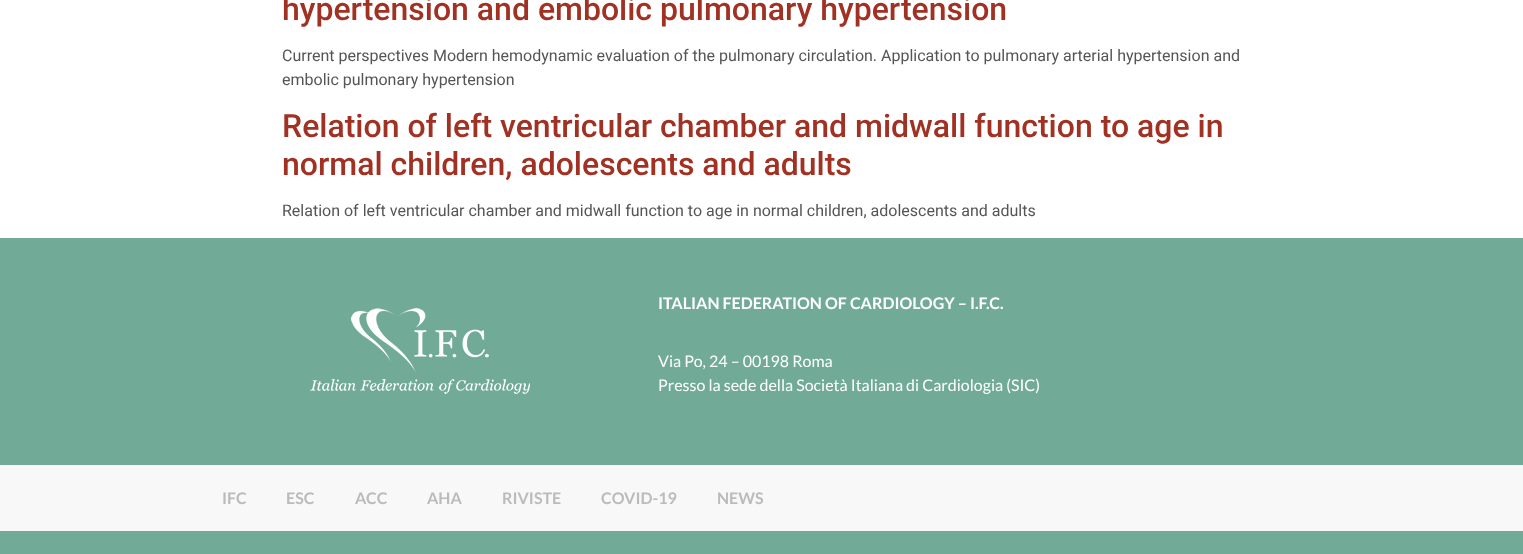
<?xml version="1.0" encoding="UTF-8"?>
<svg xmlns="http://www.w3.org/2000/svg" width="1523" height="554">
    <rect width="100%" height="100%" fill="#FFFFFF"/>
    <text x="282" y="20" font-family="Roboto" font-size="32" font-weight="500" fill="#A03123">hypertension and embolic pulmonary hypertension</text>
    <text font-family="Roboto" font-size="16" fill="#555555">
        <tspan x="282" y="61">Current perspectives Modern hemodynamic evaluation of the pulmonary circulation. Application to pulmonary arterial hypertension and</tspan>
        <tspan x="282" y="85">embolic pulmonary hypertension</tspan>
    </text>
    <text font-family="Roboto" font-size="32" font-weight="500" fill="#A03123">
        <tspan x="282" y="137">Relation of left ventricular chamber and midwall function to age in</tspan>
        <tspan x="282" y="175">normal children, adolescents and adults</tspan>
    </text>
    <text x="282" y="216" font-family="Roboto" font-size="16" fill="#555555">Relation of left ventricular chamber and midwall function to age in normal children, adolescents and adults</text>
    <rect x="0" y="238" width="1523" height="227" fill="#71AB97"/>
    <image x="310" y="308" width="220" height="86" href="img_01.png"/>
    <text x="658" y="309" font-family="Lato" font-size="16" font-weight="700" fill="#FFFFFF">ITALIAN FEDERATION OF CARDIOLOGY – I.F.C.</text>
    <text font-family="Lato" font-size="16" fill="#FFFFFF">
        <tspan x="658" y="367">Via Po, 24 – 00198 Roma</tspan>
        <tspan x="658" y="391">Presso la sede della Società Italiana di Cardiologia (SIC)</tspan>
    </text>
    <rect x="0" y="465" width="1523" height="66" fill="#F8F8F8"/>
    <text x="222" y="504" font-family="Lato" font-size="16" font-weight="700" fill="#BBBBBB">IFC</text>
    <text x="286" y="504" font-family="Lato" font-size="16" font-weight="700" fill="#BBBBBB">ESC</text>
    <text x="355" y="504" font-family="Lato" font-size="16" font-weight="700" fill="#BBBBBB">ACC</text>
    <text x="427" y="504" font-family="Lato" font-size="16" font-weight="700" fill="#BBBBBB">AHA</text>
    <text x="502" y="504" font-family="Lato" font-size="16" font-weight="700" fill="#BBBBBB">RIVISTE</text>
    <text x="601" y="504" font-family="Lato" font-size="16" font-weight="700" fill="#BBBBBB">COVID-19</text>
    <text x="717" y="504" font-family="Lato" font-size="16" font-weight="700" fill="#BBBBBB">NEWS</text>
    <rect x="0" y="531" width="1523" height="23" fill="#71AB97"/>
</svg>
